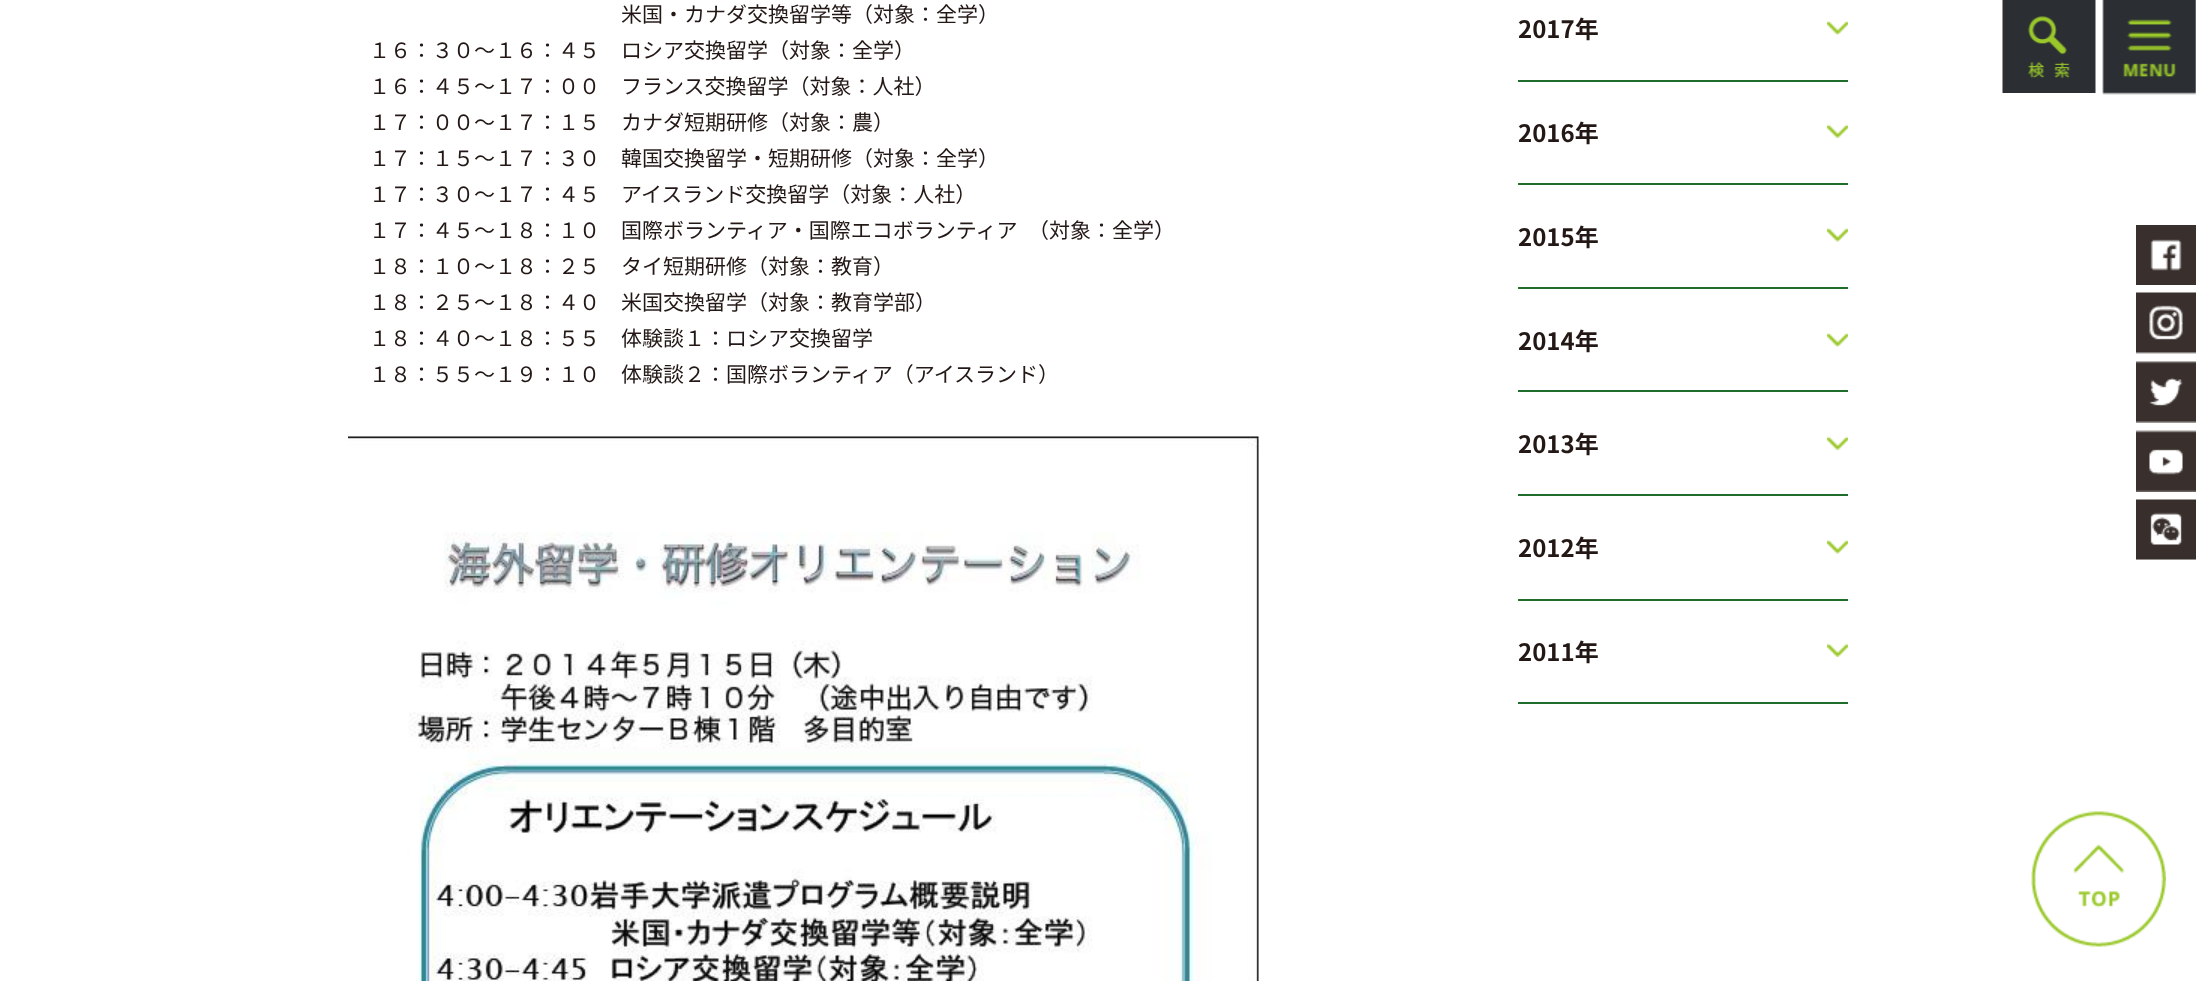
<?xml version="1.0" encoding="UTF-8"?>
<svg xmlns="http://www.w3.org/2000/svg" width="2196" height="981">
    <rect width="100%" height="100%" fill="#FFFFFF"/>
    <text x="621" y="22" font-family="Noto Sans JP" font-size="21" fill="#231815">米国・カナダ交換留学等（対象：全学）</text>
    <text font-family="Noto Sans JP" font-size="21" fill="#231815">
        <tspan x="369" y="58">１６：３０～１６：４５　ロシア交換留学（対象：全学）</tspan>
        <tspan x="369" y="94">１６：４５～１７：００　フランス交換留学（対象：人社）</tspan>
        <tspan x="369" y="130">１７：００～１７：１５　カナダ短期研修（対象：農）</tspan>
        <tspan x="369" y="166">１７：１５～１７：３０　韓国交換留学・短期研修（対象：全学）</tspan>
        <tspan x="369" y="202">１７：３０～１７：４５　アイスランド交換留学（対象：人社）</tspan>
        <tspan x="369" y="238">１７：４５～１８：１０　国際ボランティア・国際エコボランティア　（対象：全学）</tspan>
        <tspan x="369" y="274">１８：１０～１８：２５　タイ短期研修（対象：教育）</tspan>
        <tspan x="369" y="310">１８：２５～１８：４０　米国交換留学（対象：教育学部）</tspan>
        <tspan x="369" y="346">１８：４０～１８：５５　体験談１：ロシア交換留学</tspan>
        <tspan x="369" y="382">１８：５５～１９：１０　体験談２：国際ボランティア（アイスランド）</tspan>
    </text>
    <image x="348" y="436" width="911" height="545" href="img_01.png"/>
    <rect x="1518" y="80" width="330" height="2" fill="#1F6D2B"/>
    <image x="1827" y="21" width="21" height="14" href="img_02.png"/>
    <text x="1518" y="38" font-family="Noto Sans JP" font-size="24" font-weight="700" fill="#231815">2017年</text>
    <rect x="1518" y="183" width="330" height="2" fill="#1F6D2B"/>
    <image x="1827" y="124" width="21" height="14" href="img_03.png"/>
    <text x="1518" y="142" font-family="Noto Sans JP" font-size="24" font-weight="700" fill="#231815">2016年</text>
    <rect x="1518" y="287" width="330" height="2" fill="#1F6D2B"/>
    <image x="1827" y="228" width="21" height="14" href="img_02.png"/>
    <text x="1518" y="246" font-family="Noto Sans JP" font-size="24" font-weight="700" fill="#231815">2015年</text>
    <rect x="1518" y="390" width="330" height="2" fill="#1F6D2B"/>
    <image x="1827" y="333" width="21" height="14" href="img_02.png"/>
    <text x="1518" y="350" font-family="Noto Sans JP" font-size="24" font-weight="700" fill="#231815">2014年</text>
    <rect x="1518" y="494" width="330" height="2" fill="#1F6D2B"/>
    <image x="1827" y="436" width="21" height="14" href="img_03.png"/>
    <text x="1518" y="453" font-family="Noto Sans JP" font-size="24" font-weight="700" fill="#231815">2013年</text>
    <rect x="1518" y="599" width="330" height="2" fill="#1F6D2B"/>
    <image x="1827" y="540" width="21" height="14" href="img_02.png"/>
    <text x="1518" y="557" font-family="Noto Sans JP" font-size="24" font-weight="700" fill="#231815">2012年</text>
    <rect x="1518" y="702" width="330" height="2" fill="#1F6D2B"/>
    <image x="1827" y="643" width="21" height="14" href="img_03.png"/>
    <text x="1518" y="661" font-family="Noto Sans JP" font-size="24" font-weight="700" fill="#231815">2011年</text>
    <image x="2136" y="225" width="60" height="60" href="img_04.png"/>
    <image x="2136" y="292" width="60" height="62" href="img_05.png"/>
    <image x="2136" y="361" width="60" height="62" href="img_06.png"/>
    <image x="2136" y="430" width="60" height="62" href="img_07.png"/>
    <rect x="2136" y="500" width="60" height="60" fill="#EFEFEF"/>
    <image x="2136" y="499" width="60" height="61" href="img_08.png"/>
    <image x="2002" y="0" width="94" height="93" href="img_09.png"/>
    <image x="2102" y="0" width="94" height="95" href="img_10.png"/>
    <image x="2031" y="811" width="135" height="136" href="img_11.png"/>
</svg>
